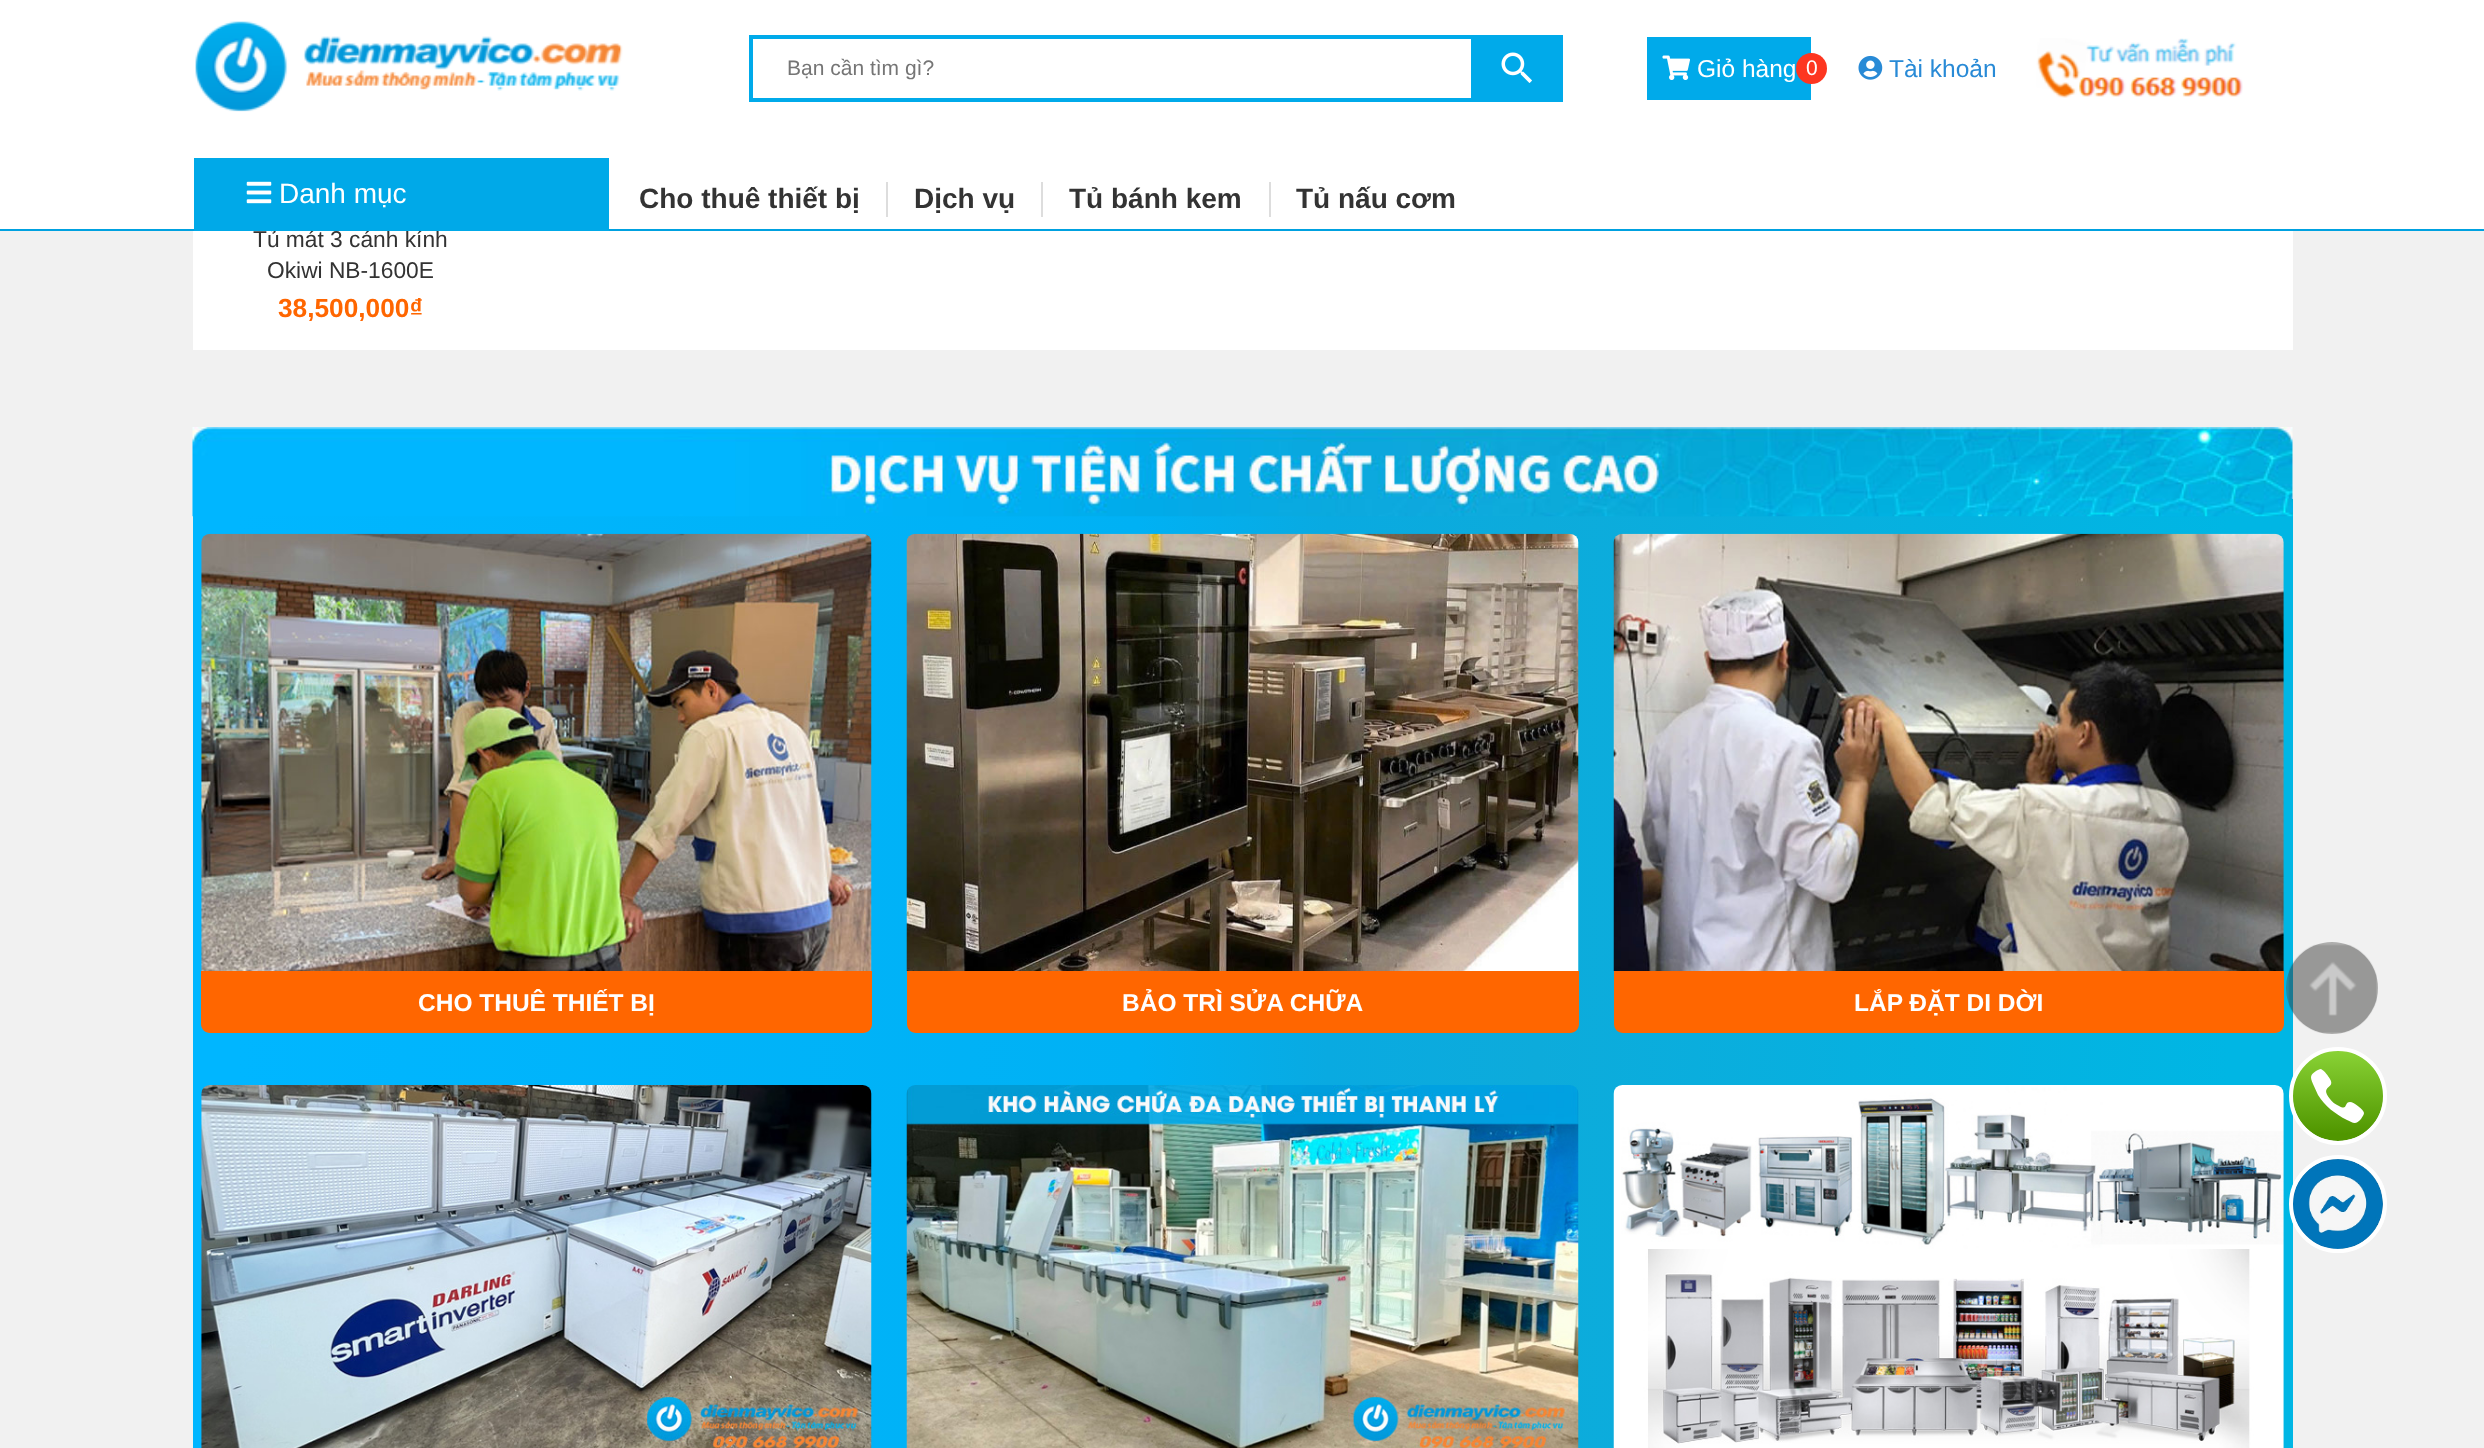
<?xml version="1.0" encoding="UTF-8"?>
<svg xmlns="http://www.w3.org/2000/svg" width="2484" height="1448">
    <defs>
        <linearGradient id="g1" gradientUnits="userSpaceOnUse" x1="193" y1="1035" x2="2293" y2="1035"><stop offset="0.02" stop-color="#00B6FF"/><stop offset="0.45" stop-color="#00B1F4"/><stop offset="0.54" stop-color="#09AAE1"/><stop offset="0.64" stop-color="#0DABDB"/><stop offset="0.97" stop-color="#00B6E4"/></linearGradient>
        <linearGradient id="g2" gradientUnits="userSpaceOnUse" x1="2338" y1="1050" x2="2338" y2="1134"><stop offset="0" stop-color="#8AD336"/><stop offset="1" stop-color="#509600"/></linearGradient>
    </defs>
    <rect width="100%" height="100%" fill="#F1F1F1"/>
    <rect x="0" y="0" width="2484" height="229" fill="#FFFFFF"/>
    <rect x="193" y="231" width="2100" height="119" fill="#FFFFFF"/>
    <text x="253" y="247" font-family="Liberation Sans" font-size="22.75" fill="#333333">Tủ mát 3 cánh kính</text>
    <rect x="0" y="229" width="2484" height="2" fill="#00A1E0"/>
    <image x="195" y="21" width="428" height="91" href="img_01.png"/>
    <rect x="751" y="37" width="722" height="63" fill="none" stroke="#00AAEA" stroke-width="4"/>
    <text x="787" y="75" font-family="Liberation Sans" font-size="21" fill="#757575">Bạn cần tìm gì?</text>
    <rect x="1475" y="35" width="88" height="67" fill="#00AAEA"/>
    <image x="1501" y="52" width="31" height="31" href="img_02.png"/>
    <rect x="1647" y="37" width="164" height="63" fill="#00AAEA"/>
    <image x="1662" y="55" width="28" height="25" href="img_03.png"/>
    <text x="1697" y="77" font-family="Liberation Sans" font-size="24.5" fill="#FFFFFF">Giỏ hàng</text>
    <circle cx="1811.5" cy="68.5" r="15.5" fill="#FD3620"/>
    <text x="1806" y="75" font-family="Liberation Sans" font-size="21" fill="#FFFFFF">0</text>
    <image x="1858" y="55" width="25" height="25" href="img_04.png"/>
    <text x="1889" y="77" font-family="Liberation Sans" font-size="24.5" fill="#288AD6">Tài khoản</text>
    <image x="2036" y="38" width="207" height="60" href="img_05.png"/>
    <rect x="194" y="158" width="415" height="73" fill="#00A9E8"/>
    <image x="246" y="181" width="26" height="23" href="img_06.png"/>
    <text x="279" y="203" font-family="Liberation Sans" font-size="28" fill="#FFFFFF">Danh mục</text>
    <text x="639" y="208" font-family="Liberation Sans" font-size="28" font-weight="700" fill="#333333">Cho thuê thiết bị</text>
    <rect x="886" y="182" width="2" height="35" fill="#DDDDDD"/>
    <text x="914" y="208" font-family="Liberation Sans" font-size="28" font-weight="700" fill="#333333">Dịch vụ</text>
    <rect x="1041" y="182" width="2" height="35" fill="#DDDDDD"/>
    <text x="1069" y="208" font-family="Liberation Sans" font-size="28" font-weight="700" fill="#333333">Tủ bánh kem</text>
    <rect x="1269" y="182" width="2" height="35" fill="#DDDDDD"/>
    <text x="1296" y="208" font-family="Liberation Sans" font-size="28" font-weight="700" fill="#333333">Tủ nấu cơm</text>
    <text x="267" y="278" font-family="Liberation Sans" font-size="22.75" fill="#333333">Okiwi NB-1600E</text>
    <text x="278" y="317" font-family="Liberation Sans" font-size="26.25" font-weight="700" fill="#FF6600">38,500,000₫</text>
    <rect x="193" y="499" width="2100" height="949" fill="url(#g1)"/>
    <image x="192" y="427" width="2101" height="90" href="img_07.png"/>
    <image x="201" y="533" width="671" height="438" href="img_08.png"/>
    <path d="M 201 971 H 872 V 1024 C 872 1029 868 1033 863 1033 H 210 C 205 1033 201 1029 201 1024 Z" fill="#FF6600"/>
    <text x="418" y="1011" font-family="Liberation Sans" font-size="24.5" font-weight="700" fill="#FFFFFF">CHO THUÊ THIẾT BỊ</text>
    <image x="906" y="533" width="673" height="438" href="img_09.png"/>
    <path d="M 907 971 H 1579 V 1024 C 1579 1029 1575 1033 1570 1033 H 916 C 911 1033 907 1029 907 1024 Z" fill="#FF6600"/>
    <text x="1122" y="1011" font-family="Liberation Sans" font-size="24.5" font-weight="700" fill="#FFFFFF">BẢO TRÌ SỬA CHỮA</text>
    <image x="1613" y="533" width="671" height="438" href="img_10.png"/>
    <path d="M 1614 971 H 2284 V 1024 C 2284 1029 2280 1033 2275 1033 H 1623 C 1618 1033 1614 1029 1614 1024 Z" fill="#FF6600"/>
    <text x="1854" y="1011" font-family="Liberation Sans" font-size="24.5" font-weight="700" fill="#FFFFFF">LẮP ĐẶT DI DỜI</text>
    <image x="201" y="1085" width="671" height="363" href="img_11.png"/>
    <image x="906" y="1085" width="673" height="363" href="img_12.png"/>
    <image x="1613" y="1085" width="671" height="363" href="img_13.png"/>
    <circle cx="2332" cy="988" r="46" fill="#4C4A49" fill-opacity="0.4"/>
    <image x="2288" y="944" width="89" height="89" href="img_14.png"/>
    <circle cx="2338" cy="1095.5" r="45.5" fill="url(#g2)"/>
    <path d="M 2321 1069 C 2325 1071 2328 1076 2330 1079 C 2336 1089 2319 1085 2330 1099 C 2332 1102 2335 1104 2339 1106 C 2348 1111 2344 1102 2350 1102 C 2354 1102 2364 1110 2364 1113 C 2364 1115 2362 1117 2361 1119 C 2356 1125 2353 1123 2347 1120 C 2335 1114 2325 1106 2318 1095 L 2313 1084 C 2310 1077 2310 1075 2316 1071 C 2318 1070 2319 1069 2321 1069 Z" fill="#FFFFFF" fill-rule="evenodd"/>
    <circle cx="2338" cy="1096" r="47" fill="none" stroke="#FFFFFF" stroke-width="4"/>
    <image x="2292" y="1158" width="92" height="92" href="img_15.png"/>
    <circle cx="2338" cy="1204" r="47" fill="none" stroke="#FFFFFF" stroke-width="4"/>
</svg>
